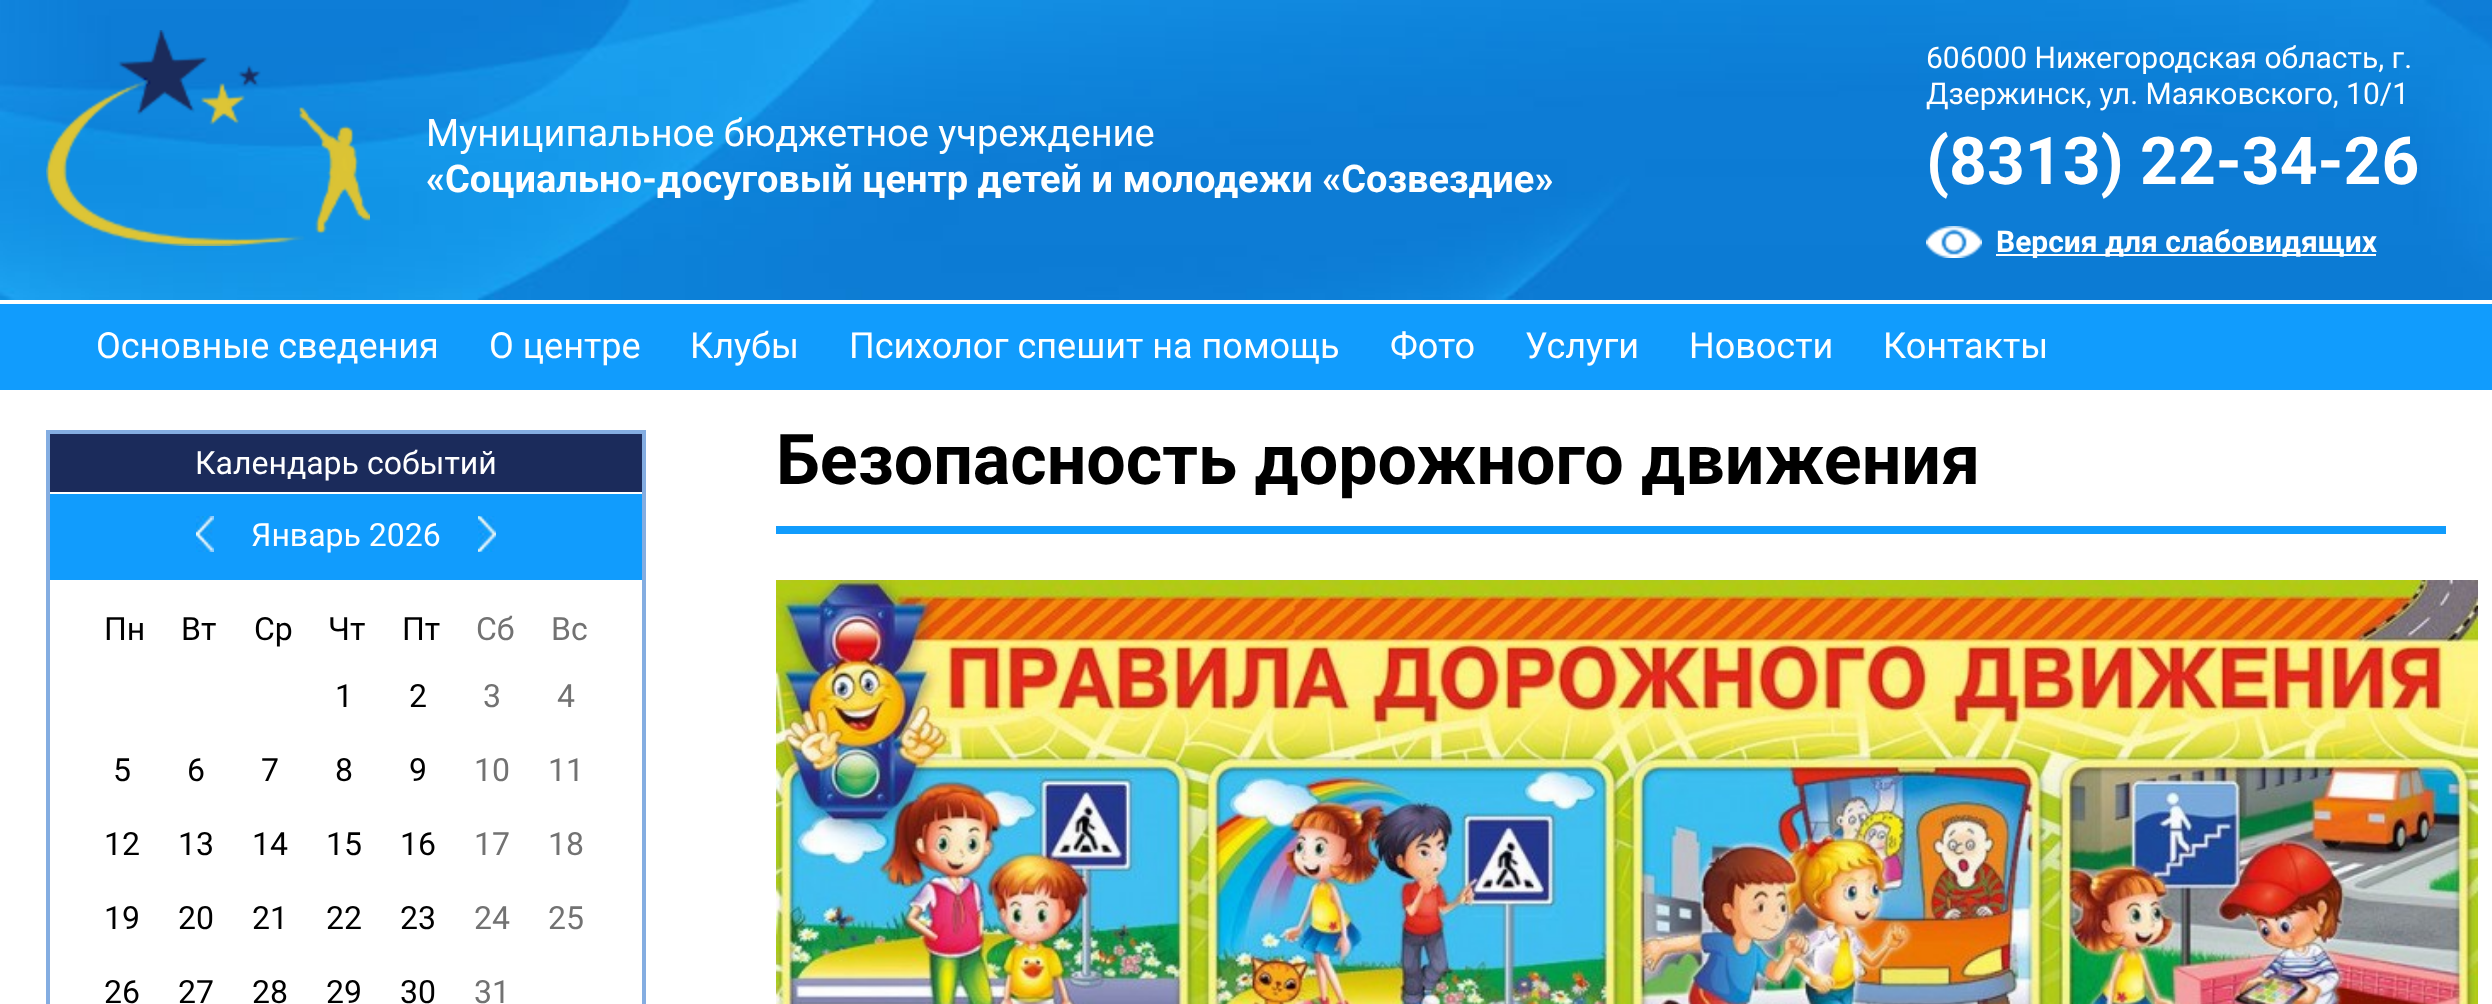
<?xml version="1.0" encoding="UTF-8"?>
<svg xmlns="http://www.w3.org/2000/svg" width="2492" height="1004">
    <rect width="100%" height="100%" fill="#FFFFFF"/>
    <image x="0" y="0" width="2492" height="300" href="img_01.png"/>
    <image x="46" y="30" width="324" height="216" href="img_02.png"/>
    <text x="426" y="146" font-family="Roboto" font-size="38" fill="#FFFFFF">Муниципальное бюджетное учреждение</text>
    <text x="426" y="192" font-family="Roboto" font-size="38" font-weight="700" fill="#FFFFFF">«Социально-досуговый центр детей и молодежи «Созвездие»</text>
    <text font-family="Roboto" font-size="30" fill="#FFFFFF">
        <tspan x="1926" y="68">606000 Нижегородская область, г.</tspan>
        <tspan x="1926" y="104">Дзержинск, ул. Маяковского, 10/1</tspan>
    </text>
    <text x="1926" y="184" font-family="Roboto" font-size="66" font-weight="700" fill="#FFFFFF">(8313) 22-34-26</text>
    <image x="1926" y="226" width="56" height="32" href="img_03.png"/>
    <rect x="1996" y="254" width="380" height="2" fill="#FFFFFF"/>
    <text x="1996" y="252" font-family="Roboto" font-size="30" font-weight="700" fill="#FFFFFF">Версия для слабовидящих</text>
    <rect x="0" y="304" width="2492" height="86" fill="#119CFD"/>
    <text x="96" y="358" font-family="Roboto" font-size="36" fill="#FFFFFF">Основные сведения</text>
    <text x="489" y="358" font-family="Roboto" font-size="36" fill="#FFFFFF">О центре</text>
    <text x="690" y="358" font-family="Roboto" font-size="36" fill="#FFFFFF">Клубы</text>
    <text x="849" y="358" font-family="Roboto" font-size="36" fill="#FFFFFF">Психолог спешит на помощь</text>
    <text x="1390" y="358" font-family="Roboto" font-size="36" fill="#FFFFFF">Фото</text>
    <text x="1525" y="358" font-family="Roboto" font-size="36" fill="#FFFFFF">Услуги</text>
    <text x="1689" y="358" font-family="Roboto" font-size="36" fill="#FFFFFF">Новости</text>
    <text x="1883" y="358" font-family="Roboto" font-size="36" fill="#FFFFFF">Контакты</text>
    <rect x="48" y="432" width="596" height="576" fill="none" stroke="#84ADE1" stroke-width="4"/>
    <rect x="50" y="434" width="592" height="58" fill="#1B2B5B"/>
    <text x="195" y="474" font-family="Roboto" font-size="32" fill="#FFFFFF">Календарь событий</text>
    <rect x="50" y="494" width="592" height="86" fill="#119CFD"/>
    <image x="196" y="516" width="18" height="36" href="img_04.png"/>
    <text x="251" y="546" font-family="Roboto" font-size="32" fill="#FFFFFF">Январь 2026</text>
    <image x="478" y="516" width="18" height="36" href="img_05.png"/>
    <text x="104" y="640" font-family="Roboto" font-size="32" fill="#000000">Пн</text>
    <text x="181" y="640" font-family="Roboto" font-size="32" fill="#000000">Вт</text>
    <text x="254" y="640" font-family="Roboto" font-size="32" fill="#000000">Ср</text>
    <text x="328" y="640" font-family="Roboto" font-size="32" fill="#000000">Чт</text>
    <text x="402" y="640" font-family="Roboto" font-size="32" fill="#000000">Пт</text>
    <text x="476" y="640" font-family="Roboto" font-size="32" fill="#727272">Сб</text>
    <text x="551" y="640" font-family="Roboto" font-size="32" fill="#727272">Вс</text>
    <text x="335" y="707" font-family="Roboto" font-size="32" fill="#000000">1</text>
    <text x="409" y="707" font-family="Roboto" font-size="32" fill="#000000">2</text>
    <text x="483" y="707" font-family="Roboto" font-size="32" fill="#727272">3</text>
    <text x="557" y="707" font-family="Roboto" font-size="32" fill="#727272">4</text>
    <text x="113" y="781" font-family="Roboto" font-size="32" fill="#000000">5</text>
    <text x="187" y="781" font-family="Roboto" font-size="32" fill="#000000">6</text>
    <text x="261" y="781" font-family="Roboto" font-size="32" fill="#000000">7</text>
    <text x="335" y="781" font-family="Roboto" font-size="32" fill="#000000">8</text>
    <text x="409" y="781" font-family="Roboto" font-size="32" fill="#000000">9</text>
    <text x="474" y="781" font-family="Roboto" font-size="32" fill="#727272">10</text>
    <text x="548" y="781" font-family="Roboto" font-size="32" fill="#727272">11</text>
    <text x="104" y="855" font-family="Roboto" font-size="32" fill="#000000">12</text>
    <text x="178" y="855" font-family="Roboto" font-size="32" fill="#000000">13</text>
    <text x="252" y="855" font-family="Roboto" font-size="32" fill="#000000">14</text>
    <text x="326" y="855" font-family="Roboto" font-size="32" fill="#000000">15</text>
    <text x="400" y="855" font-family="Roboto" font-size="32" fill="#000000">16</text>
    <text x="474" y="855" font-family="Roboto" font-size="32" fill="#727272">17</text>
    <text x="548" y="855" font-family="Roboto" font-size="32" fill="#727272">18</text>
    <text x="104" y="929" font-family="Roboto" font-size="32" fill="#000000">19</text>
    <text x="178" y="929" font-family="Roboto" font-size="32" fill="#000000">20</text>
    <text x="252" y="929" font-family="Roboto" font-size="32" fill="#000000">21</text>
    <text x="326" y="929" font-family="Roboto" font-size="32" fill="#000000">22</text>
    <text x="400" y="929" font-family="Roboto" font-size="32" fill="#000000">23</text>
    <text x="474" y="929" font-family="Roboto" font-size="32" fill="#727272">24</text>
    <text x="548" y="929" font-family="Roboto" font-size="32" fill="#727272">25</text>
    <text x="104" y="1003" font-family="Roboto" font-size="32" fill="#000000">26</text>
    <text x="178" y="1003" font-family="Roboto" font-size="32" fill="#000000">27</text>
    <text x="252" y="1003" font-family="Roboto" font-size="32" fill="#000000">28</text>
    <text x="326" y="1003" font-family="Roboto" font-size="32" fill="#000000">29</text>
    <text x="400" y="1003" font-family="Roboto" font-size="32" fill="#000000">30</text>
    <text x="474" y="1003" font-family="Roboto" font-size="32" fill="#727272">31</text>
    <rect x="776" y="526" width="1670" height="8" fill="#119CFD"/>
    <text x="776" y="484" font-family="Roboto" font-size="70" font-weight="700" fill="#000000">Безопасность дорожного движения</text>
    <image x="776" y="580" width="1702" height="424" href="img_06.png"/>
</svg>
